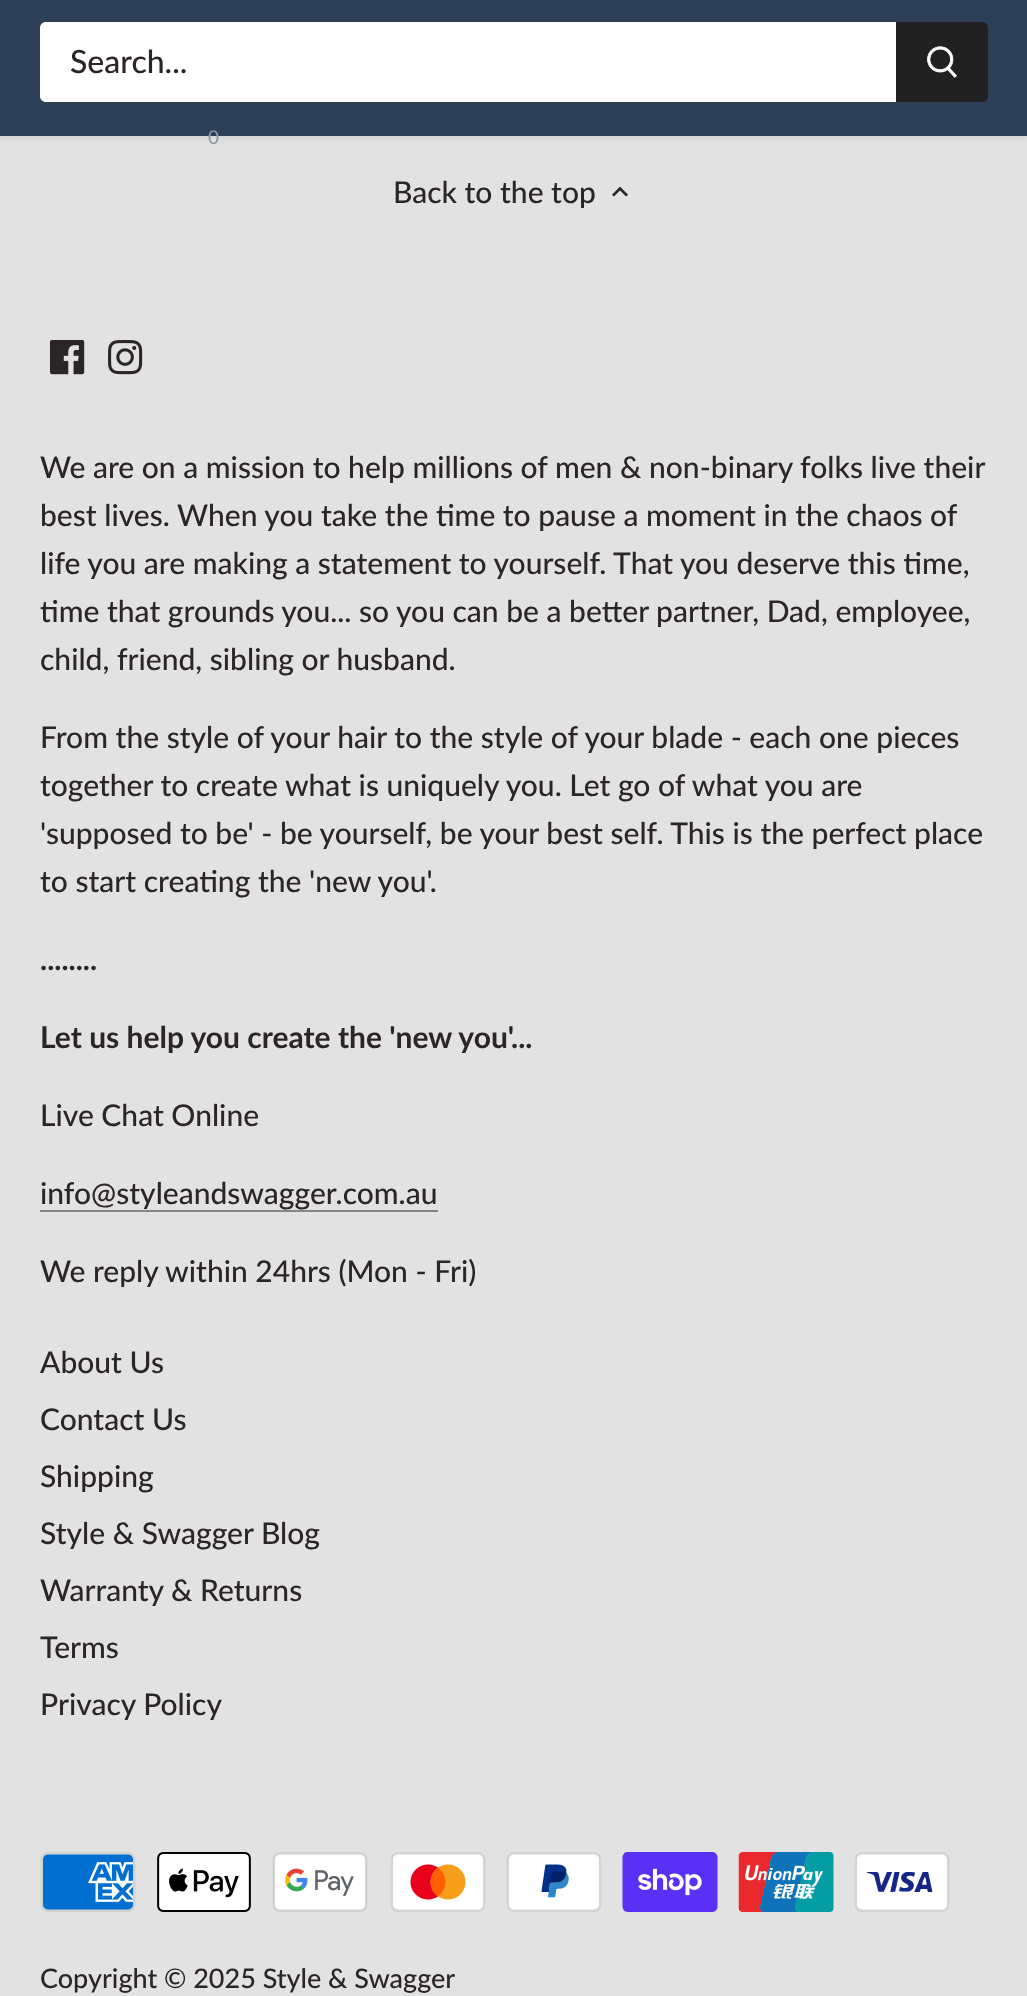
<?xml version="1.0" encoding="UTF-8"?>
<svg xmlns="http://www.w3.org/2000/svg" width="1027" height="1996">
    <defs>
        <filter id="blur1" x="-50%" y="-200%" width="200%" height="500%"><feGaussianBlur stdDeviation="3"/></filter>
    </defs>
    <rect width="100%" height="100%" fill="#E2E2E2"/>
    <rect x="-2" y="-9" width="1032" height="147" fill="#000000" fill-opacity="0.08" filter="url(#blur1)"/>
    <rect x="0" y="0" width="1027" height="136" fill="#2C3E58"/>
    <path d="M 46 22 H 898 V 102 H 46 C 42.5 102 40 99.5 40 96 V 28 C 40 24.5 42.5 22 46 22 Z" fill="#FFFFFF"/>
    <text x="70" y="73" font-family="Lato" font-size="32" font-weight="500" fill="#2C2528">Search...</text>
    <path d="M 896 22 H 982 C 985.5 22 988 24.5 988 28 V 96 C 988 99.5 985.5 102 982 102 H 896 Z" fill="#212121"/>
    <image x="927" y="46" width="30" height="32" href="img_01.png"/>
    <text x="393" y="203" font-family="Lato" font-size="30" font-weight="500" fill="#2C2528">Back to the top</text>
    <image x="612" y="186" width="16" height="11" href="img_02.png"/>
    <image x="50" y="340" width="35" height="35" href="img_03.png"/>
    <image x="108" y="340" width="35" height="35" href="img_04.png"/>
    <text font-family="Lato" font-size="30" font-weight="500" fill="#2C2528">
        <tspan x="40" y="478">We are on a mission to help millions of men &amp; non-binary folks live their</tspan>
        <tspan x="40" y="526">best lives. When you take the time to pause a moment in the chaos of</tspan>
        <tspan x="40" y="574">life you are making a statement to yourself. That you deserve this time,</tspan>
        <tspan x="40" y="622">time that grounds you... so you can be a better partner, Dad, employee,</tspan>
        <tspan x="40" y="670">child, friend, sibling or husband.</tspan>
    </text>
    <text font-family="Lato" font-size="30" font-weight="500" fill="#2C2528">
        <tspan x="40" y="748">From the style of your hair to the style of your blade - each one pieces</tspan>
        <tspan x="40" y="796">together to create what is uniquely you. Let go of what you are</tspan>
        <tspan x="40" y="844">'supposed to be' - be yourself, be your best self. This is the perfect place</tspan>
        <tspan x="40" y="892">to start creating the 'new you'.</tspan>
    </text>
    <text x="40" y="970" font-family="Lato" font-size="30" font-weight="700" fill="#2C2528">........</text>
    <text x="40" y="1048" font-family="Lato" font-size="30" font-weight="700" fill="#2C2528">Let us help you create the 'new you'...</text>
    <text x="40" y="1126" font-family="Lato" font-size="30" font-weight="500" fill="#2C2528">Live Chat Online</text>
    <text x="40" y="1204" font-family="Lato" font-size="30" font-weight="500" fill="#2C2528">info@styleandswagger.com.au</text>
    <rect x="40" y="1210" width="398" height="2" fill="#878485"/>
    <text x="40" y="1282" font-family="Lato" font-size="30" font-weight="500" fill="#2C2528">We reply within 24hrs (Mon - Fri)</text>
    <text font-family="Lato" font-size="30" font-weight="500" fill="#2C2528">
        <tspan x="40" y="1373">About Us</tspan>
        <tspan x="40" y="1430">Contact Us</tspan>
        <tspan x="40" y="1487">Shipping</tspan>
        <tspan x="40" y="1544">Style &amp; Swagger Blog</tspan>
        <tspan x="40" y="1601">Warranty &amp; Returns</tspan>
        <tspan x="40" y="1658">Terms</tspan>
        <tspan x="40" y="1715">Privacy Policy</tspan>
    </text>
    <image x="40" y="1852" width="96" height="60" href="img_05.png"/>
    <image x="157" y="1852" width="94" height="60" href="img_06.png"/>
    <image x="272" y="1852" width="96" height="60" href="img_07.png"/>
    <image x="390" y="1852" width="96" height="60" href="img_08.png"/>
    <image x="506" y="1852" width="96" height="60" href="img_09.png"/>
    <image x="622" y="1852" width="96" height="60" href="img_10.png"/>
    <image x="738" y="1852" width="96" height="60" href="img_11.png"/>
    <image x="854" y="1852" width="96" height="60" href="img_12.png"/>
    <text x="40" y="1988" font-family="Lato" font-size="27" font-weight="500" fill="#2C2528">Copyright © 2025 Style &amp; Swagger</text>
    <text x="208" y="144" font-family="Lato" font-size="19" font-weight="500" fill="#9199A4">0</text>
</svg>
